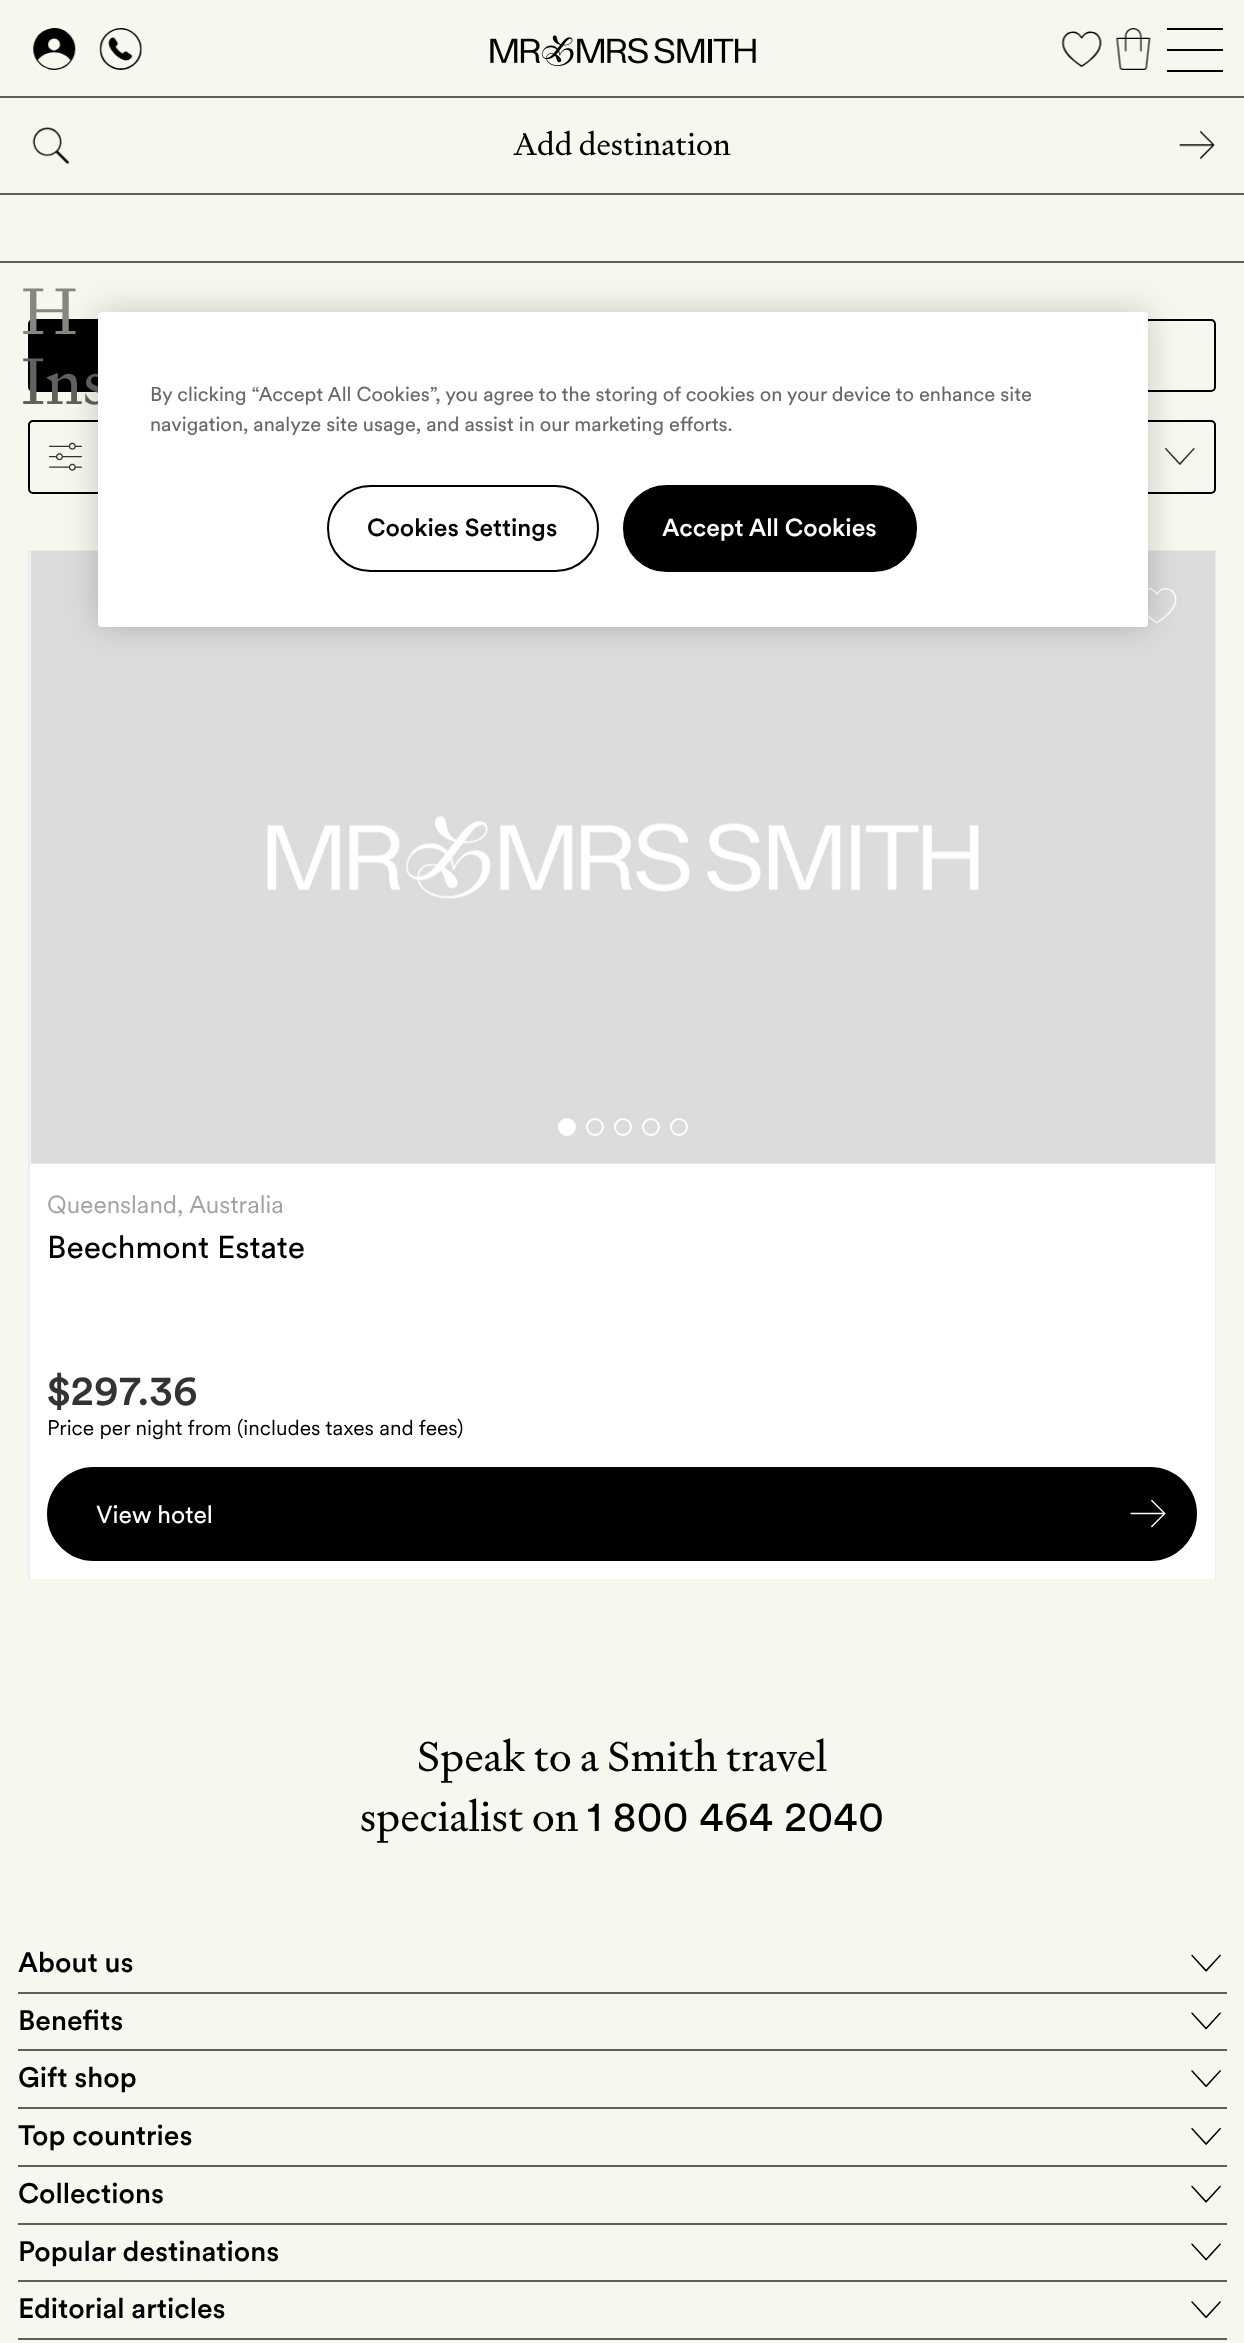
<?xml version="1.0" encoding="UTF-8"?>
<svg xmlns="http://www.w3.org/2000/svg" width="1244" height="2343">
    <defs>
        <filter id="blur1" x="-50%" y="-200%" width="200%" height="500%"><feGaussianBlur stdDeviation="16"/></filter>
    </defs>
    <rect width="100%" height="100%" fill="#F7F7EF"/>
    <image x="32" y="127" width="37" height="38" href="img_01.png"/>
    <text x="513" y="155" font-family="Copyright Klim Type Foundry" font-size="31.5" fill="#000000">Add destination</text>
    <image x="1179" y="131" width="36" height="29" href="img_02.png"/>
    <rect x="0" y="193" width="1244" height="2" fill="#605E5C"/>
    <rect x="0" y="261" width="1244" height="2" fill="#605E5C"/>
    <rect x="0" y="96" width="1244" height="2" fill="#605E5C"/>
    <image x="33" y="28" width="43" height="42" href="img_03.png"/>
    <image x="99" y="28" width="44" height="42" href="img_04.png"/>
    <image x="490" y="35" width="266" height="31" href="img_05.png"/>
    <image x="1061" y="31" width="41" height="36" href="img_06.png"/>
    <image x="1116" y="28" width="35" height="42" href="img_07.png"/>
    <rect x="1167" y="28" width="56" height="2" fill="#000000"/>
    <rect x="1167" y="49" width="56" height="2" fill="#000000"/>
    <rect x="1167" y="70" width="56" height="2" fill="#000000"/>
    <rect x="29" y="320" width="1186" height="71" rx="4" fill="none" stroke="#000000" stroke-width="2"/>
    <rect x="30" y="321" width="68" height="69" fill="#000000"/>
    <text x="21" y="334" font-family="Copyright Klim Type Foundry" font-size="66" fill="#878782">H</text>
    <text x="21" y="404" font-family="Copyright Klim Type Foundry" font-size="66" fill="#61615E">Ins</text>
    <rect x="29" y="421" width="1186" height="72" rx="4" fill="none" stroke="#000000" stroke-width="2"/>
    <image x="49" y="442" width="33" height="29" href="img_08.png"/>
    <image x="1165" y="448" width="30" height="17" href="img_09.png"/>
    <rect x="30" y="552" width="1185" height="1027" fill="#FFFFFF"/>
    <rect x="28" y="550" width="1188" height="2" fill="#EEEEEE"/>
    <rect x="1215" y="550" width="1" height="1029" fill="#EEEEEE"/>
    <rect x="28" y="550" width="2" height="1029" fill="#EEEEEE"/>
    <image x="30" y="551" width="1185" height="613" href="img_10.png"/>
    <circle cx="567" cy="1127" r="8" fill="#FFFFFF" stroke="#FFFFFF" stroke-width="2"/>
    <circle cx="595" cy="1127" r="8" fill="none" stroke="#FFFFFF" stroke-width="2"/>
    <circle cx="623" cy="1127" r="8" fill="none" stroke="#FFFFFF" stroke-width="2"/>
    <circle cx="651" cy="1127" r="8" fill="none" stroke="#FFFFFF" stroke-width="2"/>
    <circle cx="679" cy="1127" r="8" fill="none" stroke="#FFFFFF" stroke-width="2"/>
    <image x="1148" y="588" width="29" height="36" href="img_11.png"/>
    <text x="47" y="1213" font-family="'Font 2'" font-size="24.5" fill="#A2A2A2">Queensland, Australia</text>
    <text x="47" y="1258" font-family="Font" font-size="31.5" fill="#000000">Beechmont Estate</text>
    <text x="47" y="1405" font-family="Font" font-size="42" font-weight="500" fill="#333333">$297.36</text>
    <text x="47" y="1435" font-family="'Font 2'" font-size="21" fill="#000000">Price per night from (includes taxes and fees)</text>
    <rect x="48" y="1468" width="1148" height="92" rx="46" fill="#000000" stroke="#000000" stroke-width="2"/>
    <text x="96" y="1523" font-family="Font" font-size="24.5" fill="#FFFFFF">View hotel</text>
    <image x="1130" y="1499" width="36" height="29" href="img_12.png"/>
    <text x="417" y="1771" font-family="Copyright Klim Type Foundry" font-size="42" fill="#000000">Speak to a Smith travel</text>
    <text x="360" y="1831" font-family="Copyright Klim Type Foundry" font-size="42" fill="#000000">specialist on</text>
    <text x="587" y="1831" font-family="Font" font-size="42" fill="#000000">1 800 464 2040</text>
    <rect x="18" y="1992" width="1209" height="2" fill="#605E5C"/>
    <text x="18" y="1972" font-family="Font" font-size="28" font-weight="500" fill="#000000">About us</text>
    <image x="1191" y="1954" width="30" height="18" href="img_13.png"/>
    <rect x="18" y="2049" width="1209" height="2" fill="#605E5C"/>
    <text x="18" y="2030" font-family="Font" font-size="28" font-weight="500" fill="#000000">Benefits</text>
    <image x="1191" y="2012" width="30" height="18" href="img_14.png"/>
    <rect x="18" y="2107" width="1209" height="2" fill="#605E5C"/>
    <text x="18" y="2087" font-family="Font" font-size="28" font-weight="500" fill="#000000">Gift shop</text>
    <image x="1191" y="2070" width="30" height="17" href="img_15.png"/>
    <rect x="18" y="2165" width="1209" height="2" fill="#605E5C"/>
    <text x="18" y="2145" font-family="Font" font-size="28" font-weight="500" fill="#000000">Top countries</text>
    <image x="1191" y="2128" width="30" height="17" href="img_16.png"/>
    <rect x="18" y="2223" width="1209" height="2" fill="#605E5C"/>
    <text x="18" y="2203" font-family="Font" font-size="28" font-weight="500" fill="#000000">Collections</text>
    <image x="1191" y="2185" width="30" height="18" href="img_13.png"/>
    <rect x="18" y="2280" width="1209" height="2" fill="#605E5C"/>
    <text x="18" y="2261" font-family="Font" font-size="28" font-weight="500" fill="#000000">Popular destinations</text>
    <image x="1191" y="2243" width="30" height="18" href="img_14.png"/>
    <rect x="18" y="2338" width="1209" height="2" fill="#605E5C"/>
    <text x="18" y="2318" font-family="Font" font-size="28" font-weight="500" fill="#000000">Editorial articles</text>
    <image x="1191" y="2301" width="30" height="17" href="img_15.png"/>
    <rect x="98" y="312" width="1050" height="315" rx="4" fill="#000000" fill-opacity="0.2" filter="url(#blur1)"/>
    <rect x="98" y="312" width="1050" height="315" rx="4" fill="#FFFFFF"/>
    <text font-family="Font" font-size="19.9" fill="#696969">
        <tspan x="150" y="401">By clicking “Accept All Cookies”, you agree to the storing of cookies on your device to enhance site</tspan>
        <tspan x="150" y="431">navigation, analyze site usage, and assist in our marketing efforts.</tspan>
    </text>
    <rect x="328" y="486" width="270" height="85" rx="42.5" fill="none" stroke="#000000" stroke-width="2"/>
    <text x="367" y="536" font-family="Font" font-size="24.5" font-weight="500" fill="#000000">Cookies Settings</text>
    <rect x="624" y="486" width="292" height="85" rx="42.5" fill="#000000" stroke="#000000" stroke-width="2"/>
    <text x="662" y="536" font-family="Font" font-size="24.5" font-weight="500" fill="#FFFFFF">Accept All Cookies</text>
</svg>
